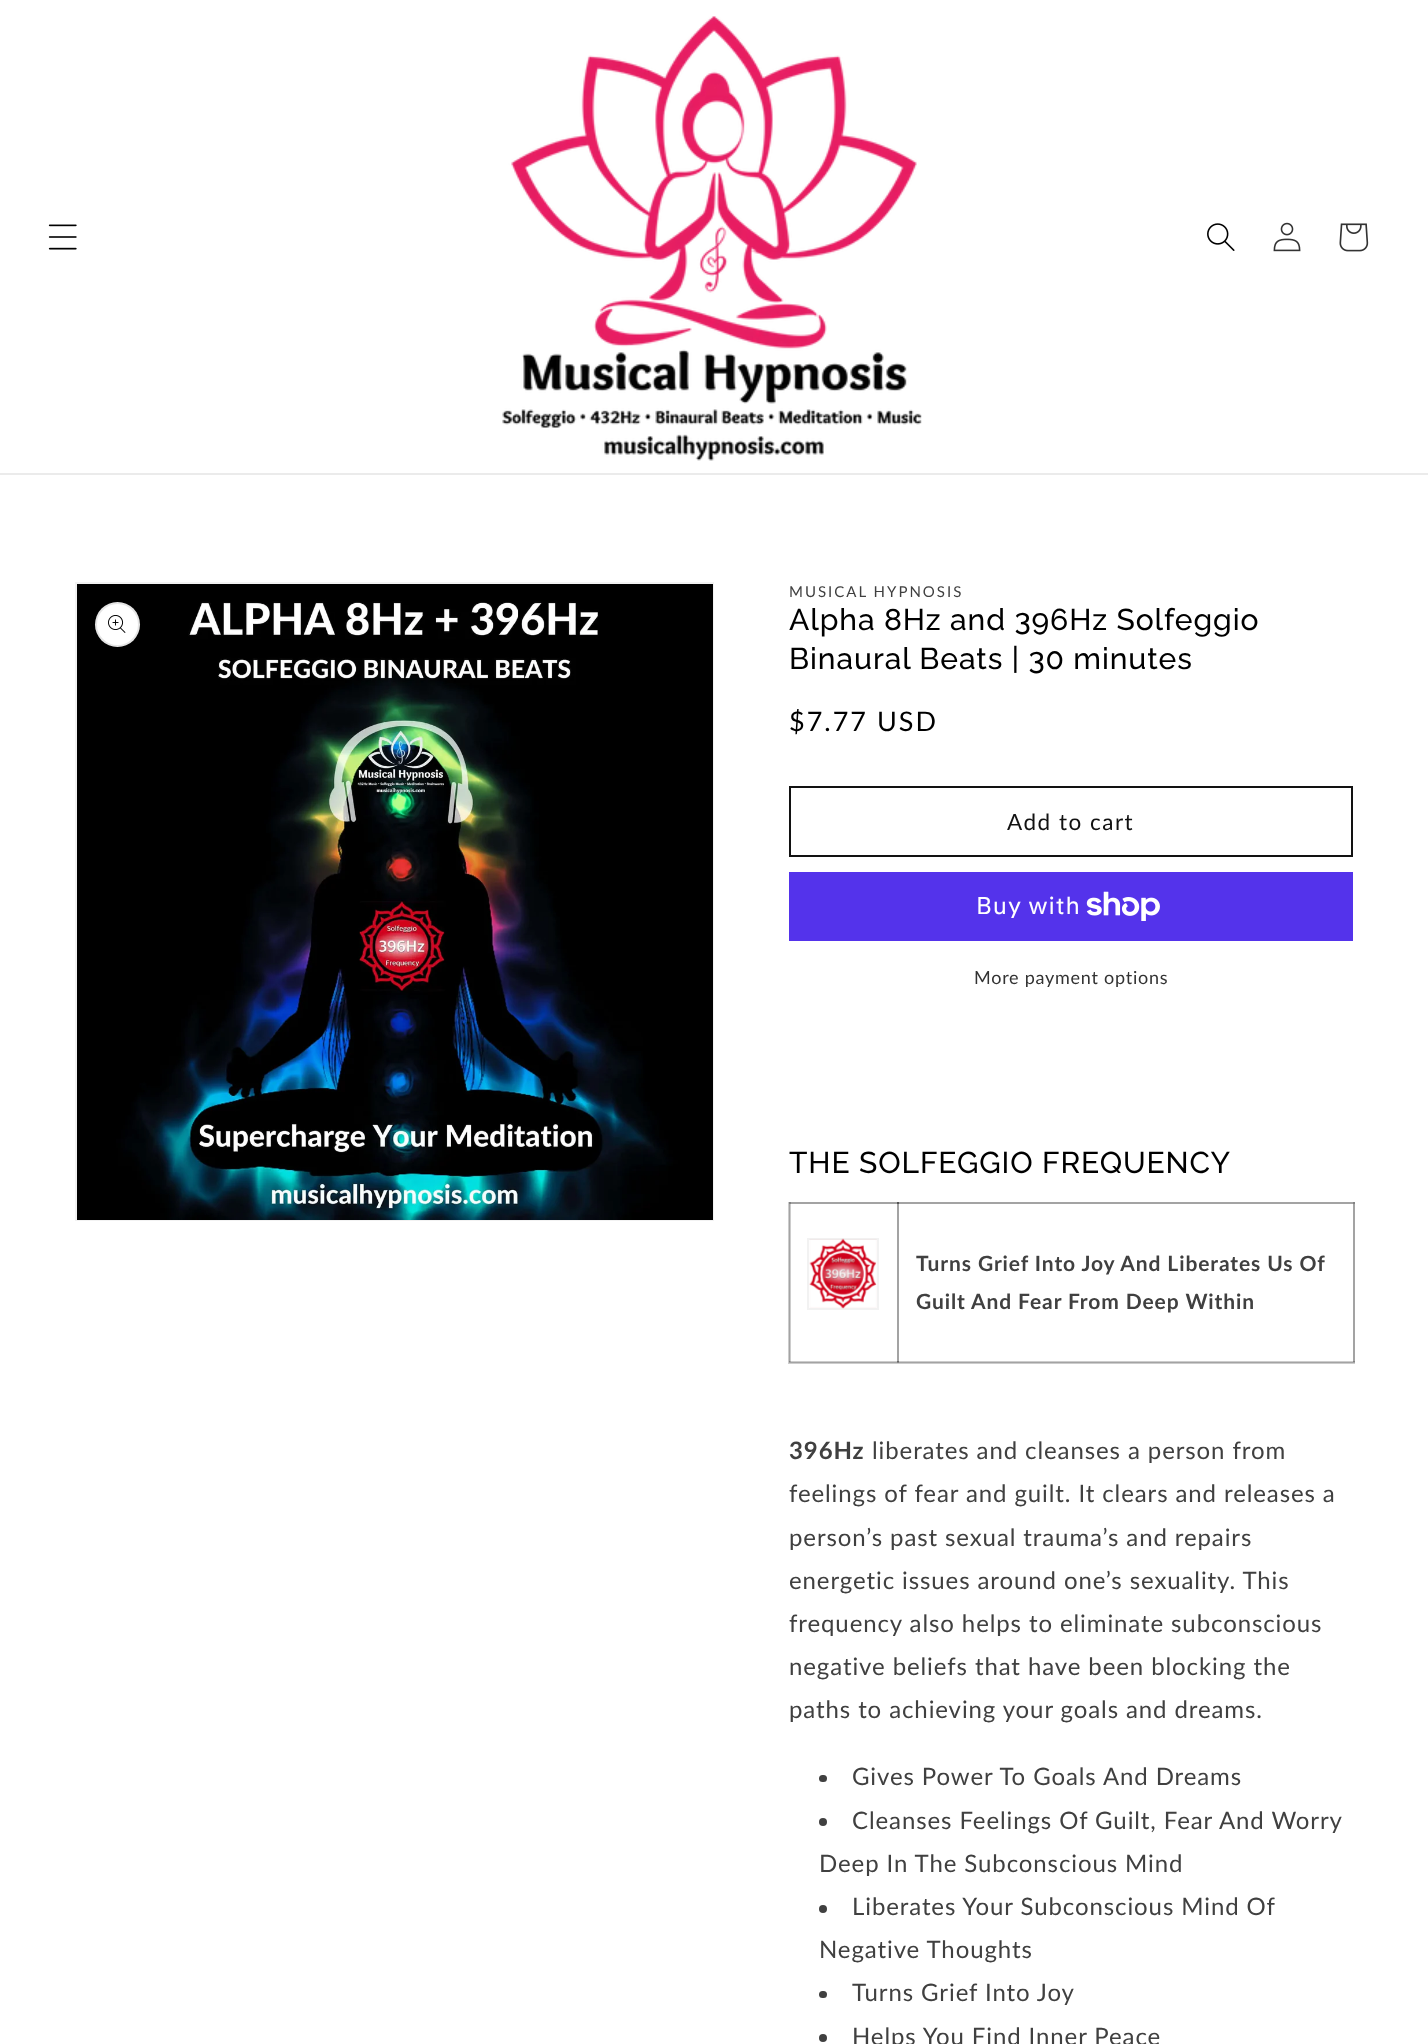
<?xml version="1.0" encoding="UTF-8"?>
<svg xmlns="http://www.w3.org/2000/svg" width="1428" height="2044">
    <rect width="100%" height="100%" fill="#FFFFFF"/>
    <rect x="0" y="473" width="1428" height="2" fill="#EBEBEB"/>
    <image x="48" y="224" width="29" height="26" href="img_01.png"/>
    <image x="502" y="16" width="420" height="445" href="img_02.png"/>
    <image x="1207" y="223" width="28" height="28" href="img_03.png"/>
    <image x="1273" y="222" width="28" height="30" href="img_04.png"/>
    <image x="1339" y="223" width="30" height="29" href="img_05.png"/>
    <rect x="76" y="583" width="637" height="637" fill="none" stroke="#F2F2F2" stroke-width="2"/>
    <image x="77" y="584" width="636" height="636" href="img_06.png"/>
    <circle cx="117.5" cy="624.5" r="22.5" fill="#FFFFFF"/>
    <circle cx="117.5" cy="624.5" r="21.5" fill="none" stroke="#000000" stroke-opacity="0.1" stroke-width="2"/>
    <image x="108" y="615" width="18" height="18" href="img_07.png"/>
    <text x="789" y="597" font-family="Lato" font-size="15" letter-spacing="2" fill="#404040">MUSICAL HYPNOSIS</text>
    <text font-family="Raleway" font-size="30" font-weight="500" letter-spacing="0.9" fill="#000000">
        <tspan x="789" y="630">Alpha 8Hz and 396Hz Solfeggio</tspan>
        <tspan x="789" y="669">Binaural Beats | 30 minutes</tspan>
    </text>
    <text x="789" y="731" font-family="Lato" font-size="27" letter-spacing="2" fill="#000000">$7.77 USD</text>
    <rect x="790" y="787" width="562" height="69" fill="none" stroke="#121212" stroke-width="2"/>
    <text x="1007" y="830" font-family="Lato" font-size="22.5" letter-spacing="1.5" fill="#121212">Add to cart</text>
    <rect x="789" y="872" width="564" height="69" fill="#5433EB"/>
    <text x="976" y="914" font-family="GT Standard" font-size="24" letter-spacing="0.9" fill="#FFFFFF">Buy with</text>
    <image x="1086" y="891" width="74" height="30" href="img_08.png"/>
    <text x="974" y="984" font-family="Lato" font-size="18" letter-spacing="0.75" fill="#333333">More payment options</text>
    <text x="789" y="1173" font-family="Raleway" font-size="30" font-weight="500" letter-spacing="0.9" fill="#000000">THE SOLFEGGIO FREQUENCY</text>
    <rect x="789" y="1203" width="565" height="160" fill="none" stroke="#CCCCCC" stroke-width="2"/>
    <rect x="897" y="1202" width="458" height="2" fill="#A3A3A3"/>
    <rect x="1353" y="1202" width="2" height="160" fill="#000000" fill-opacity="0.2"/>
    <rect x="897" y="1361" width="458" height="2" fill="#000000" fill-opacity="0.2"/>
    <rect x="897" y="1202" width="2" height="160" fill="#000000" fill-opacity="0.2"/>
    <rect x="789" y="1202" width="110" height="2" fill="#000000" fill-opacity="0.2"/>
    <rect x="897" y="1202" width="2" height="160" fill="#000000" fill-opacity="0.2"/>
    <rect x="789" y="1361" width="110" height="2" fill="#000000" fill-opacity="0.2"/>
    <rect x="789" y="1202" width="2" height="160" fill="#000000" fill-opacity="0.2"/>
    <rect x="808" y="1239" width="70" height="70" fill="none" stroke="#F2F2F2" stroke-width="2"/>
    <image x="809" y="1238" width="68" height="71" href="img_09.png"/>
    <text font-family="Lato" font-size="21" font-weight="700" letter-spacing="0.9" fill="#404040">
        <tspan x="916" y="1271">Turns Grief Into Joy And Liberates Us Of</tspan>
        <tspan x="916" y="1309">Guilt And Fear From Deep Within</tspan>
    </text>
    <text x="789" y="1459" font-family="Lato" font-size="24" font-weight="700" letter-spacing="0.9" fill="#404040">396Hz</text>
    <text x="872" y="1459" font-family="Lato" font-size="24" letter-spacing="0.9" fill="#404040">liberates and cleanses a person from</text>
    <text font-family="Lato" font-size="24" letter-spacing="0.9" fill="#404040">
        <tspan x="789" y="1502">feelings of fear and guilt. It clears and releases a</tspan>
        <tspan x="789" y="1546">person’s past sexual trauma’s and repairs</tspan>
        <tspan x="789" y="1589">energetic issues around one’s sexuality. This</tspan>
        <tspan x="789" y="1632">frequency also helps to eliminate subconscious</tspan>
        <tspan x="789" y="1675">negative beliefs that have been blocking the</tspan>
        <tspan x="789" y="1718">paths to achieving your goals and dreams.</tspan>
    </text>
    <rect x="819" y="1775" width="8" height="7" rx="3.5" fill="#404040"/>
    <text x="852" y="1785" font-family="Lato" font-size="24" letter-spacing="0.9" fill="#404040">Gives Power To Goals And Dreams</text>
    <circle cx="823" cy="1822" r="4" fill="#404040"/>
    <text x="852" y="1829" font-family="Lato" font-size="24" letter-spacing="0.9" fill="#404040">Cleanses Feelings Of Guilt, Fear And Worry</text>
    <text x="819" y="1872" font-family="Lato" font-size="24" letter-spacing="0.9" fill="#404040">Deep In The Subconscious Mind</text>
    <circle cx="823" cy="1909" r="4" fill="#404040"/>
    <text x="852" y="1915" font-family="Lato" font-size="24" letter-spacing="0.9" fill="#404040">Liberates Your Subconscious Mind Of</text>
    <text x="819" y="1958" font-family="Lato" font-size="24" letter-spacing="0.9" fill="#404040">Negative Thoughts</text>
    <rect x="819" y="1991" width="8" height="7" rx="3.5" fill="#404040"/>
    <text x="852" y="2001" font-family="Lato" font-size="24" letter-spacing="0.9" fill="#404040">Turns Grief Into Joy</text>
    <circle cx="823" cy="2038" r="4" fill="#404040"/>
    <text x="852" y="2045" font-family="Lato" font-size="24" letter-spacing="0.9" fill="#404040">Helps You Find Inner Peace</text>
</svg>
